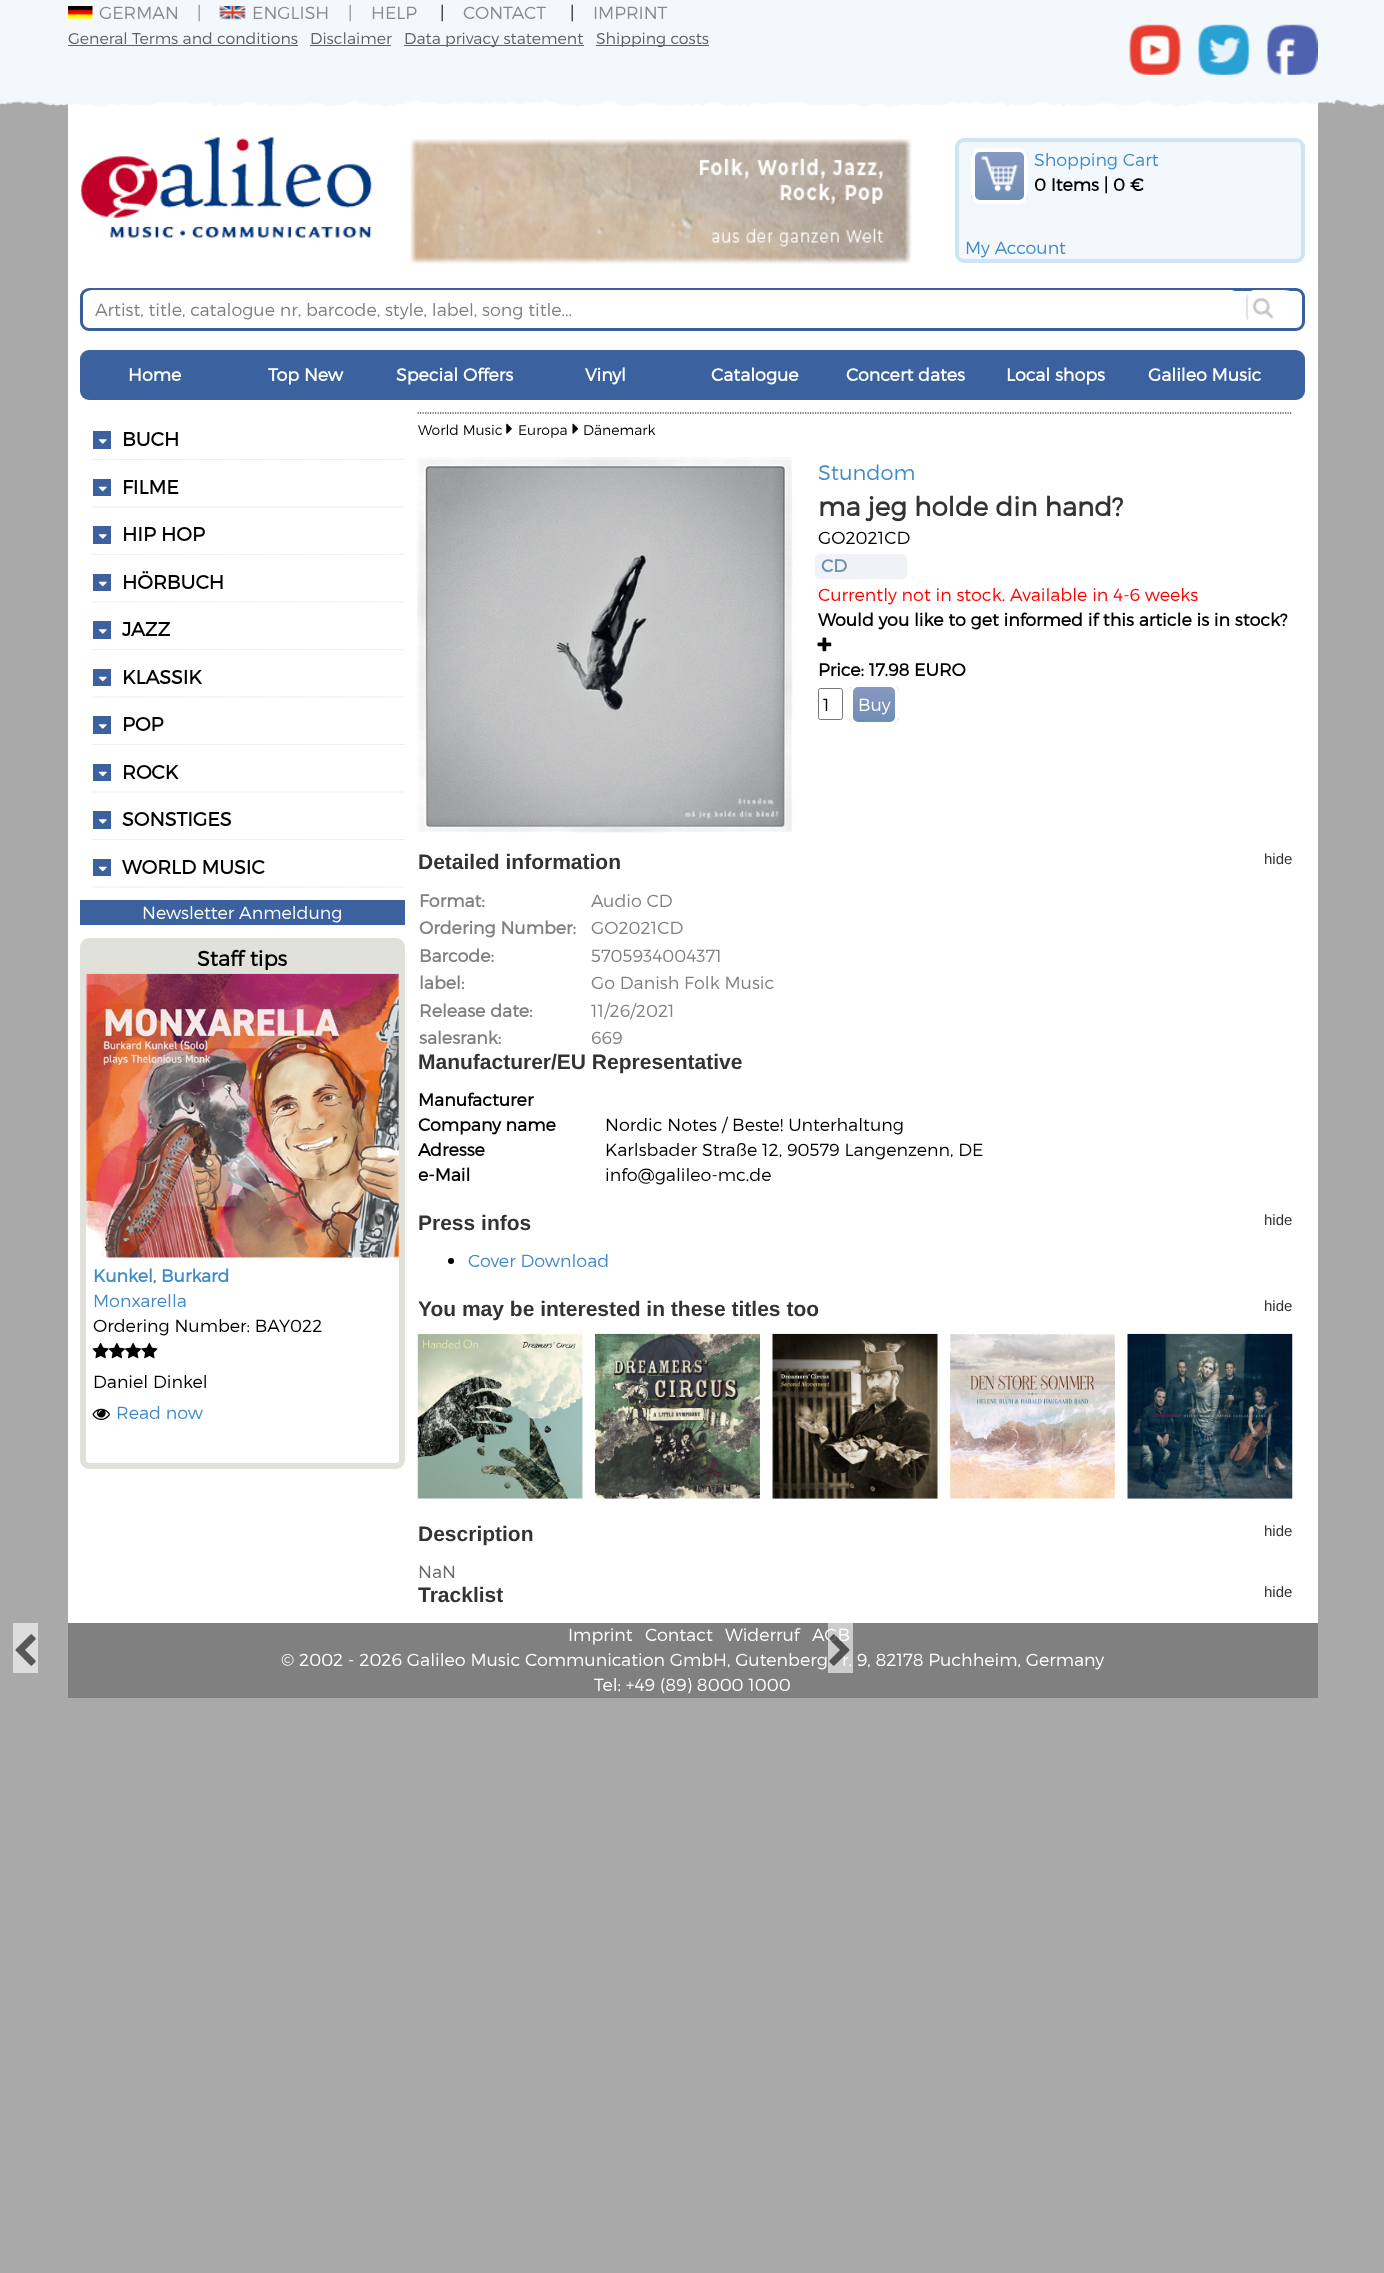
<?xml version="1.0" encoding="UTF-8"?>
<svg xmlns="http://www.w3.org/2000/svg" width="1384" height="2273">
    <defs>
        <clipPath id="clip1"><rect x="971" y="148" width="57" height="56" rx="9"/></clipPath>
        <linearGradient id="g1" gradientUnits="userSpaceOnUse" x1="999" y1="151" x2="999" y2="200"><stop offset="0" stop-color="#8899C2"/><stop offset="1" stop-color="#6D8DB5"/></linearGradient>
        <clipPath id="clip2"><rect x="849" y="683" width="50" height="43" rx="9"/></clipPath>
        <linearGradient id="g2" gradientUnits="userSpaceOnUse" x1="874" y1="686" x2="874" y2="723"><stop offset="0" stop-color="#8899C2"/><stop offset="1" stop-color="#6D8DB5"/></linearGradient>
    </defs>
    <rect width="100%" height="100%" fill="#A9A9A9"/>
    <rect x="68" y="99" width="1250" height="1524" fill="#FFFFFF"/>
    <image x="0" y="0" width="1384" height="108" href="img_01.png"/>
    <image x="68" y="6" width="25" height="14" href="img_02.png"/>
    <text x="99" y="19" font-family="Montserrat" font-size="17.5" font-weight="300" fill="#888A8C">GERMAN</text>
    <text x="197" y="19" font-family="Montserrat" font-size="17.5" font-weight="300" fill="#888A8C">|</text>
    <image x="219" y="6" width="27" height="14" href="img_03.png"/>
    <text x="252" y="19" font-family="Montserrat" font-size="17.5" font-weight="300" fill="#888A8C">ENGLISH</text>
    <text x="348" y="19" font-family="Montserrat" font-size="17.5" font-weight="300" fill="#888A8C">|</text>
    <text x="371" y="19" font-family="Montserrat" font-size="17.5" font-weight="300" fill="#888A8C">HELP</text>
    <text x="440" y="19" font-family="Montserrat" font-size="17.5" font-weight="300" fill="#000000">|</text>
    <text x="463" y="19" font-family="Montserrat" font-size="17.5" font-weight="300" fill="#888A8C">CONTACT</text>
    <text x="570" y="19" font-family="Montserrat" font-size="17.5" font-weight="300" fill="#000000">|</text>
    <text x="593" y="19" font-family="Montserrat" font-size="17.5" font-weight="300" fill="#888A8C">IMPRINT</text>
    <text x="68" y="44" font-family="Montserrat" font-size="15.75" font-weight="300" fill="#5F5F5F">General Terms and conditions</text>
    <rect x="68" y="45" width="230" height="1" fill="#5F5F5F"/>
    <text x="310" y="44" font-family="Montserrat" font-size="15.75" font-weight="300" fill="#5F5F5F">Disclaimer</text>
    <rect x="310" y="45" width="81" height="1" fill="#5F5F5F"/>
    <rect x="404" y="45" width="180" height="1" fill="#5F5F5F"/>
    <text x="404" y="44" font-family="Montserrat" font-size="15.75" font-weight="300" fill="#5F5F5F">Data privacy statement</text>
    <rect x="596" y="45" width="113" height="1" fill="#5F5F5F"/>
    <text x="596" y="44" font-family="Montserrat" font-size="15.75" font-weight="300" fill="#5F5F5F">Shipping costs</text>
    <image x="1129" y="24" width="52" height="51" href="img_04.png"/>
    <image x="1198" y="24" width="52" height="51" href="img_05.png"/>
    <image x="1267" y="24" width="51" height="51" href="img_06.png"/>
    <image x="80" y="137" width="292" height="101" href="img_07.png"/>
    <image x="410" y="139" width="502" height="125" href="img_08.png"/>
    <rect x="957" y="140" width="346" height="121" rx="7" fill="#F3F8FC" stroke="#CDE6F5" stroke-width="4"/>
    <g clip-path="url(#clip1)">
        <rect x="971" y="151" width="57" height="49" fill="url(#g1)"/>
    </g>
    <rect x="973" y="150" width="53" height="52" rx="7" fill="none" stroke="#FFFFFF" stroke-width="4"/>
    <image x="981" y="156" width="37" height="36" href="img_09.png"/>
    <text x="1034" y="166" font-family="Montserrat" font-size="17.5" font-weight="300" fill="#428BCA">Shopping Cart</text>
    <text x="1034" y="191" font-family="Montserrat" font-size="17.5" font-weight="700" fill="#000000">0 Items | 0 €</text>
    <text x="965" y="254" font-family="Montserrat" font-size="17.5" font-weight="300" fill="#428BCA">My Account</text>
    <rect x="81.5" y="289.5" width="1222" height="40" rx="7.5" fill="none" stroke="#395F9E" stroke-width="3"/>
    <rect x="83" y="290" width="1157" height="38" rx="9" fill="#FFFFFF"/>
    <text x="95" y="316" font-family="Montserrat" font-size="17.5" font-weight="300" fill="#808080">Artist, title, catalogue nr, barcode, style, label, song title...</text>
    <image x="1252" y="297" width="22" height="22" href="img_10.png"/>
    <path d="M 1255 290 C 1251 290 1249 292 1248 294 L 1249 297 C 1249 296 1250 295 1251 294 C 1255 293 1288 293 1291 296 L 1294 293 C 1292 291 1288 290 1282 290 Z" fill="#FFFFFF"/>
    <path d="M 1246 299 C 1246.5 297 1247 295.5 1247.5 294 L 1248.5 297 C 1247.5 300 1248 304 1248 307.5 C 1248 310.5 1247.5 314.5 1248.5 317.5 L 1247.5 321 C 1247 320 1246.5 318.5 1246 316.5 Z" fill="#DFE3E6"/>
    <rect x="80" y="350" width="1225" height="50" rx="9" fill="#3B619F"/>
    <text x="128" y="381" font-family="Montserrat" font-size="17.5" font-weight="700" fill="#FFFFFF">Home</text>
    <text x="268" y="381" font-family="Montserrat" font-size="17.5" font-weight="700" fill="#FFFFFF">Top New</text>
    <text x="396" y="381" font-family="Montserrat" font-size="17.5" font-weight="700" fill="#FFFFFF">Special Offers</text>
    <text x="585" y="381" font-family="Montserrat" font-size="17.5" font-weight="700" fill="#FFFFFF">Vinyl</text>
    <text x="711" y="381" font-family="Montserrat" font-size="17.5" font-weight="700" fill="#FFFFFF">Catalogue</text>
    <text x="846" y="381" font-family="Montserrat" font-size="17.5" font-weight="700" fill="#FFFFFF">Concert dates</text>
    <text x="1006" y="381" font-family="Montserrat" font-size="17.5" font-weight="700" fill="#FFFFFF">Local shops</text>
    <text x="1148" y="381" font-family="Montserrat" font-size="17.5" font-weight="700" fill="#FFFFFF">Galileo Music</text>
    <path d="M 92.5 459.5 H 405" fill="none" stroke="#E1E1DC" stroke-width="1.2" stroke-dasharray="1.25 1.25"/>
    <rect x="93" y="431" width="18" height="18" fill="#3B619F"/>
    <image x="98" y="439" width="9" height="5" href="img_11.png"/>
    <text x="122" y="446" font-family="Montserrat" font-size="19.25" font-weight="700" fill="#000000">BUCH</text>
    <path d="M 92.5 507 H 405" fill="none" stroke="#E1E1DC" stroke-width="1.2" stroke-dasharray="1.25 1.25"/>
    <rect x="93" y="479" width="18" height="17" fill="#3B619F"/>
    <image x="98" y="486" width="9" height="6" href="img_12.png"/>
    <text x="122" y="494" font-family="Montserrat" font-size="19.25" font-weight="700" fill="#000000">FILME</text>
    <path d="M 92.5 554.5 H 405" fill="none" stroke="#E1E1DC" stroke-width="1.2" stroke-dasharray="1.25 1.25"/>
    <rect x="93" y="526" width="18" height="18" fill="#3B619F"/>
    <image x="98" y="534" width="9" height="5" href="img_11.png"/>
    <text x="122" y="541" font-family="Montserrat" font-size="19.25" font-weight="700" fill="#000000">HIP HOP</text>
    <path d="M 92.5 602 H 405" fill="none" stroke="#E1E1DC" stroke-width="1.2" stroke-dasharray="1.25 1.25"/>
    <rect x="93" y="574" width="18" height="17" fill="#3B619F"/>
    <image x="98" y="581" width="9" height="6" href="img_12.png"/>
    <text x="122" y="589" font-family="Montserrat" font-size="19.25" font-weight="700" fill="#000000">HÖRBUCH</text>
    <path d="M 92.5 649.5 H 405" fill="none" stroke="#E1E1DC" stroke-width="1.2" stroke-dasharray="1.25 1.25"/>
    <rect x="93" y="621" width="18" height="18" fill="#3B619F"/>
    <image x="98" y="629" width="9" height="5" href="img_11.png"/>
    <text x="122" y="636" font-family="Montserrat" font-size="19.25" font-weight="700" fill="#000000">JAZZ</text>
    <path d="M 92.5 697 H 405" fill="none" stroke="#E1E1DC" stroke-width="1.2" stroke-dasharray="1.25 1.25"/>
    <rect x="93" y="669" width="18" height="17" fill="#3B619F"/>
    <image x="98" y="676" width="9" height="6" href="img_12.png"/>
    <text x="122" y="684" font-family="Montserrat" font-size="19.25" font-weight="700" fill="#000000">KLASSIK</text>
    <path d="M 92.5 744.5 H 405" fill="none" stroke="#E1E1DC" stroke-width="1.2" stroke-dasharray="1.25 1.25"/>
    <rect x="93" y="716" width="18" height="18" fill="#3B619F"/>
    <image x="98" y="724" width="9" height="5" href="img_11.png"/>
    <text x="122" y="731" font-family="Montserrat" font-size="19.25" font-weight="700" fill="#000000">POP</text>
    <path d="M 92.5 792 H 405" fill="none" stroke="#E1E1DC" stroke-width="1.2" stroke-dasharray="1.25 1.25"/>
    <rect x="93" y="764" width="18" height="17" fill="#3B619F"/>
    <image x="98" y="771" width="9" height="6" href="img_12.png"/>
    <text x="122" y="779" font-family="Montserrat" font-size="19.25" font-weight="700" fill="#000000">ROCK</text>
    <path d="M 92.5 839.5 H 405" fill="none" stroke="#E1E1DC" stroke-width="1.2" stroke-dasharray="1.25 1.25"/>
    <rect x="93" y="811" width="18" height="18" fill="#3B619F"/>
    <image x="98" y="819" width="9" height="5" href="img_11.png"/>
    <text x="122" y="826" font-family="Montserrat" font-size="19.25" font-weight="700" fill="#000000">SONSTIGES</text>
    <path d="M 92.5 887 H 405" fill="none" stroke="#E1E1DC" stroke-width="1.2" stroke-dasharray="1.25 1.25"/>
    <rect x="93" y="859" width="18" height="17" fill="#3B619F"/>
    <image x="98" y="866" width="9" height="6" href="img_12.png"/>
    <text x="122" y="874" font-family="Montserrat" font-size="19.25" font-weight="700" fill="#000000">WORLD MUSIC</text>
    <rect x="80" y="900" width="325" height="25" fill="#3B619F"/>
    <text x="142" y="919" font-family="Montserrat" font-size="17.5" font-weight="300" fill="#FFFFFF">Newsletter Anmeldung</text>
    <rect x="83" y="941" width="319" height="525" rx="6" fill="none" stroke="#E1E1DC" stroke-width="6"/>
    <rect x="86" y="944" width="313" height="30" fill="#E1E1DC"/>
    <text x="197" y="966" font-family="Montserrat" font-size="21" font-weight="700" fill="#000000">Staff tips</text>
    <image x="86" y="973" width="313" height="285" href="img_13.png"/>
    <text x="93" y="1282" font-family="Montserrat" font-size="17.5" font-weight="700" fill="#428BCA">Kunkel, Burkard</text>
    <text x="93" y="1307" font-family="Montserrat" font-size="17.5" font-weight="300" fill="#428BCA">Monxarella</text>
    <text x="93" y="1332" font-family="Montserrat" font-size="17.5" font-weight="300" fill="#000000">Ordering Number: BAY022</text>
    <image x="92" y="1342" width="17" height="17" href="img_14.png"/>
    <image x="108" y="1342" width="17" height="17" href="img_15.png"/>
    <image x="125" y="1342" width="17" height="17" href="img_16.png"/>
    <image x="141" y="1342" width="17" height="17" href="img_17.png"/>
    <text x="93" y="1388" font-family="Montserrat" font-size="17.5" font-weight="300" fill="#000000">Daniel Dinkel</text>
    <image x="92" y="1408" width="18" height="12" href="img_18.png"/>
    <text x="116" y="1419" font-family="Montserrat" font-size="17.5" font-weight="300" fill="#428BCA">Read now</text>
    <path d="M 417.5 413 H 1292.5" fill="none" stroke="#000000" stroke-width="1.2" stroke-dasharray="1.25 1.25"/>
    <text x="418" y="435" font-family="Montserrat" font-size="14" font-weight="300" fill="#000000">World Music</text>
    <image x="506" y="423" width="6" height="11" href="img_19.png"/>
    <text x="518" y="435" font-family="Montserrat" font-size="14" font-weight="300" fill="#000000">Europa</text>
    <image x="572" y="423" width="7" height="11" href="img_20.png"/>
    <text x="583" y="435" font-family="Montserrat" font-size="14" font-weight="300" fill="#000000">Dänemark</text>
    <image x="417" y="457" width="376" height="376" href="img_21.png"/>
    <text x="818" y="480" font-family="Montserrat" font-size="21" font-weight="300" fill="#428BCA">Stundom</text>
    <text x="818" y="516" font-family="Montserrat" font-size="26.25" font-weight="700" fill="#333333">ma jeg holde din hand?</text>
    <text x="818" y="544" font-family="Montserrat" font-size="17.5" font-weight="300" fill="#000000">GO2021CD</text>
    <rect x="813" y="552" width="96" height="29" rx="7" fill="#F1F2F5" stroke="#FFFFFF" stroke-width="4"/>
    <text x="821" y="572" font-family="Montserrat" font-size="17.5" font-weight="700" fill="#6D8DB5">CD</text>
    <text x="818" y="601" font-family="Montserrat" font-size="17.5" font-weight="300" fill="#FF0000">Currently not in stock. Available in 4-6 weeks</text>
    <text x="818" y="626" font-family="Montserrat" font-size="17.5" font-weight="700" fill="#000000">Would you like to get informed if this article is in stock?</text>
    <image x="817" y="637" width="15" height="15" href="img_22.png"/>
    <text x="818" y="676" font-family="Montserrat" font-size="17.5" font-weight="700" fill="#000000">Price: 17.98 EURO</text>
    <rect x="818.5" y="688.5" width="24" height="31" rx="2" fill="none" stroke="#767676"/>
    <text x="823" y="711" font-family="Montserrat" font-size="17.5" font-weight="300" fill="#000000">1</text>
    <g clip-path="url(#clip2)">
        <rect x="849" y="686" width="50" height="37" fill="url(#g2)"/>
    </g>
    <rect x="851" y="685" width="46" height="39" rx="7" fill="none" stroke="#FFFFFF" stroke-width="4"/>
    <text x="858" y="711" font-family="Montserrat" font-size="17.5" font-weight="300" fill="#FFFFFF">Buy</text>
    <text x="418" y="869" font-family="Liberation Sans" font-size="21" font-weight="700" fill="#333333">Detailed information</text>
    <text x="1264" y="864" font-family="Liberation Sans" font-size="15" fill="#333333">hide</text>
    <text x="419" y="907" font-family="Montserrat" font-size="17.5" font-weight="700" fill="#808080">Format:</text>
    <text x="591" y="907" font-family="Montserrat" font-size="17.5" font-weight="300" fill="#808080">Audio CD</text>
    <text x="419" y="934" font-family="Montserrat" font-size="17.5" font-weight="700" fill="#808080">Ordering Number:</text>
    <text x="591" y="934" font-family="Montserrat" font-size="17.5" font-weight="300" fill="#808080">GO2021CD</text>
    <text x="419" y="962" font-family="Montserrat" font-size="17.5" font-weight="700" fill="#808080">Barcode:</text>
    <text x="591" y="962" font-family="Montserrat" font-size="17.5" font-weight="300" fill="#808080">5705934004371</text>
    <text x="419" y="989" font-family="Montserrat" font-size="17.5" font-weight="700" fill="#808080">label:</text>
    <text x="591" y="989" font-family="Montserrat" font-size="17.5" font-weight="300" fill="#808080">Go Danish Folk Music</text>
    <text x="419" y="1017" font-family="Montserrat" font-size="17.5" font-weight="700" fill="#808080">Release date:</text>
    <text x="591" y="1017" font-family="Montserrat" font-size="17.5" font-weight="300" fill="#808080">11/26/2021</text>
    <text x="419" y="1044" font-family="Montserrat" font-size="17.5" font-weight="700" fill="#808080">salesrank:</text>
    <text x="591" y="1044" font-family="Montserrat" font-size="17.5" font-weight="300" fill="#808080">669</text>
    <text x="418" y="1069" font-family="Liberation Sans" font-size="21" font-weight="700" fill="#333333">Manufacturer/EU Representative</text>
    <text font-family="Montserrat" font-size="17.5" font-weight="700" fill="#000000">
        <tspan x="418" y="1106">Manufacturer</tspan>
        <tspan x="418" y="1131">Company name</tspan>
    </text>
    <text x="605" y="1131" font-family="Montserrat" font-size="17.5" font-weight="300" fill="#000000">Nordic Notes / Beste! Unterhaltung</text>
    <text x="418" y="1156" font-family="Montserrat" font-size="17.5" font-weight="700" fill="#000000">Adresse</text>
    <text x="605" y="1156" font-family="Montserrat" font-size="17.5" font-weight="300" fill="#000000">Karlsbader Straße 12, 90579 Langenzenn, DE</text>
    <text x="418" y="1181" font-family="Montserrat" font-size="17.5" font-weight="700" fill="#000000">e-Mail</text>
    <text x="605" y="1181" font-family="Montserrat" font-size="17.5" font-weight="300" fill="#000000">info@galileo-mc.de</text>
    <text x="418" y="1230" font-family="Liberation Sans" font-size="21" font-weight="700" fill="#333333">Press infos</text>
    <text x="1264" y="1225" font-family="Liberation Sans" font-size="15" fill="#333333">hide</text>
    <circle cx="451" cy="1261" r="3" fill="#000000"/>
    <text x="468" y="1267" font-family="Montserrat" font-size="17.5" font-weight="300" fill="#428BCA">Cover Download</text>
    <text x="418" y="1316" font-family="Liberation Sans" font-size="21" font-weight="700" fill="#333333">You may be interested in these titles too</text>
    <text x="1264" y="1311" font-family="Liberation Sans" font-size="15" fill="#333333">hide</text>
    <image x="417" y="1333" width="166" height="166" href="img_23.png"/>
    <image x="595" y="1333" width="165" height="166" href="img_24.png"/>
    <image x="772" y="1333" width="166" height="166" href="img_25.png"/>
    <image x="950" y="1334" width="165" height="165" href="img_26.png"/>
    <image x="1127" y="1333" width="166" height="166" href="img_27.png"/>
    <rect x="13" y="1623" width="25" height="50" fill="#DDDDDD"/>
    <image x="15" y="1634" width="21" height="32" href="img_28.png"/>
    <rect x="68" y="1623" width="1250" height="75" fill="#808080"/>
    <text x="812" y="1641" font-family="Montserrat" font-size="17.5" font-weight="300" fill="#FFFFFF">AGB</text>
    <text x="842" y="1666" font-family="Montserrat" font-size="17.5" font-weight="300" fill="#FFFFFF">r. 9, 82178 Puchheim, Germany</text>
    <rect x="828" y="1623" width="25" height="50" fill="#FFFFFF" fill-opacity="0.6"/>
    <image x="829" y="1634" width="21" height="32" href="img_29.png"/>
    <text x="418" y="1541" font-family="Liberation Sans" font-size="21" font-weight="700" fill="#333333">Description</text>
    <text x="1264" y="1536" font-family="Liberation Sans" font-size="15" fill="#333333">hide</text>
    <text x="418" y="1578" font-family="Montserrat" font-size="17.5" font-weight="300" fill="#666666">NaN</text>
    <text x="418" y="1602" font-family="Liberation Sans" font-size="21" font-weight="700" fill="#333333">Tracklist</text>
    <text x="1264" y="1597" font-family="Liberation Sans" font-size="15" fill="#333333">hide</text>
    <text x="568" y="1641" font-family="Montserrat" font-size="17.5" font-weight="300" fill="#FFFFFF">Imprint</text>
    <text x="645" y="1641" font-family="Montserrat" font-size="17.5" font-weight="300" fill="#FFFFFF">Contact</text>
    <text x="725" y="1641" font-family="Montserrat" font-size="17.5" font-weight="300" fill="#FFFFFF">Widerruf</text>
    <text x="281" y="1666" font-family="Montserrat" font-size="17.5" font-weight="300" fill="#FFFFFF">© 2002 - 2026 Galileo Music Communication GmbH, Gutenberg</text>
    <text x="594" y="1691" font-family="Montserrat" font-size="17.5" font-weight="300" fill="#FFFFFF">Tel: +49 (89) 8000 1000</text>
</svg>
